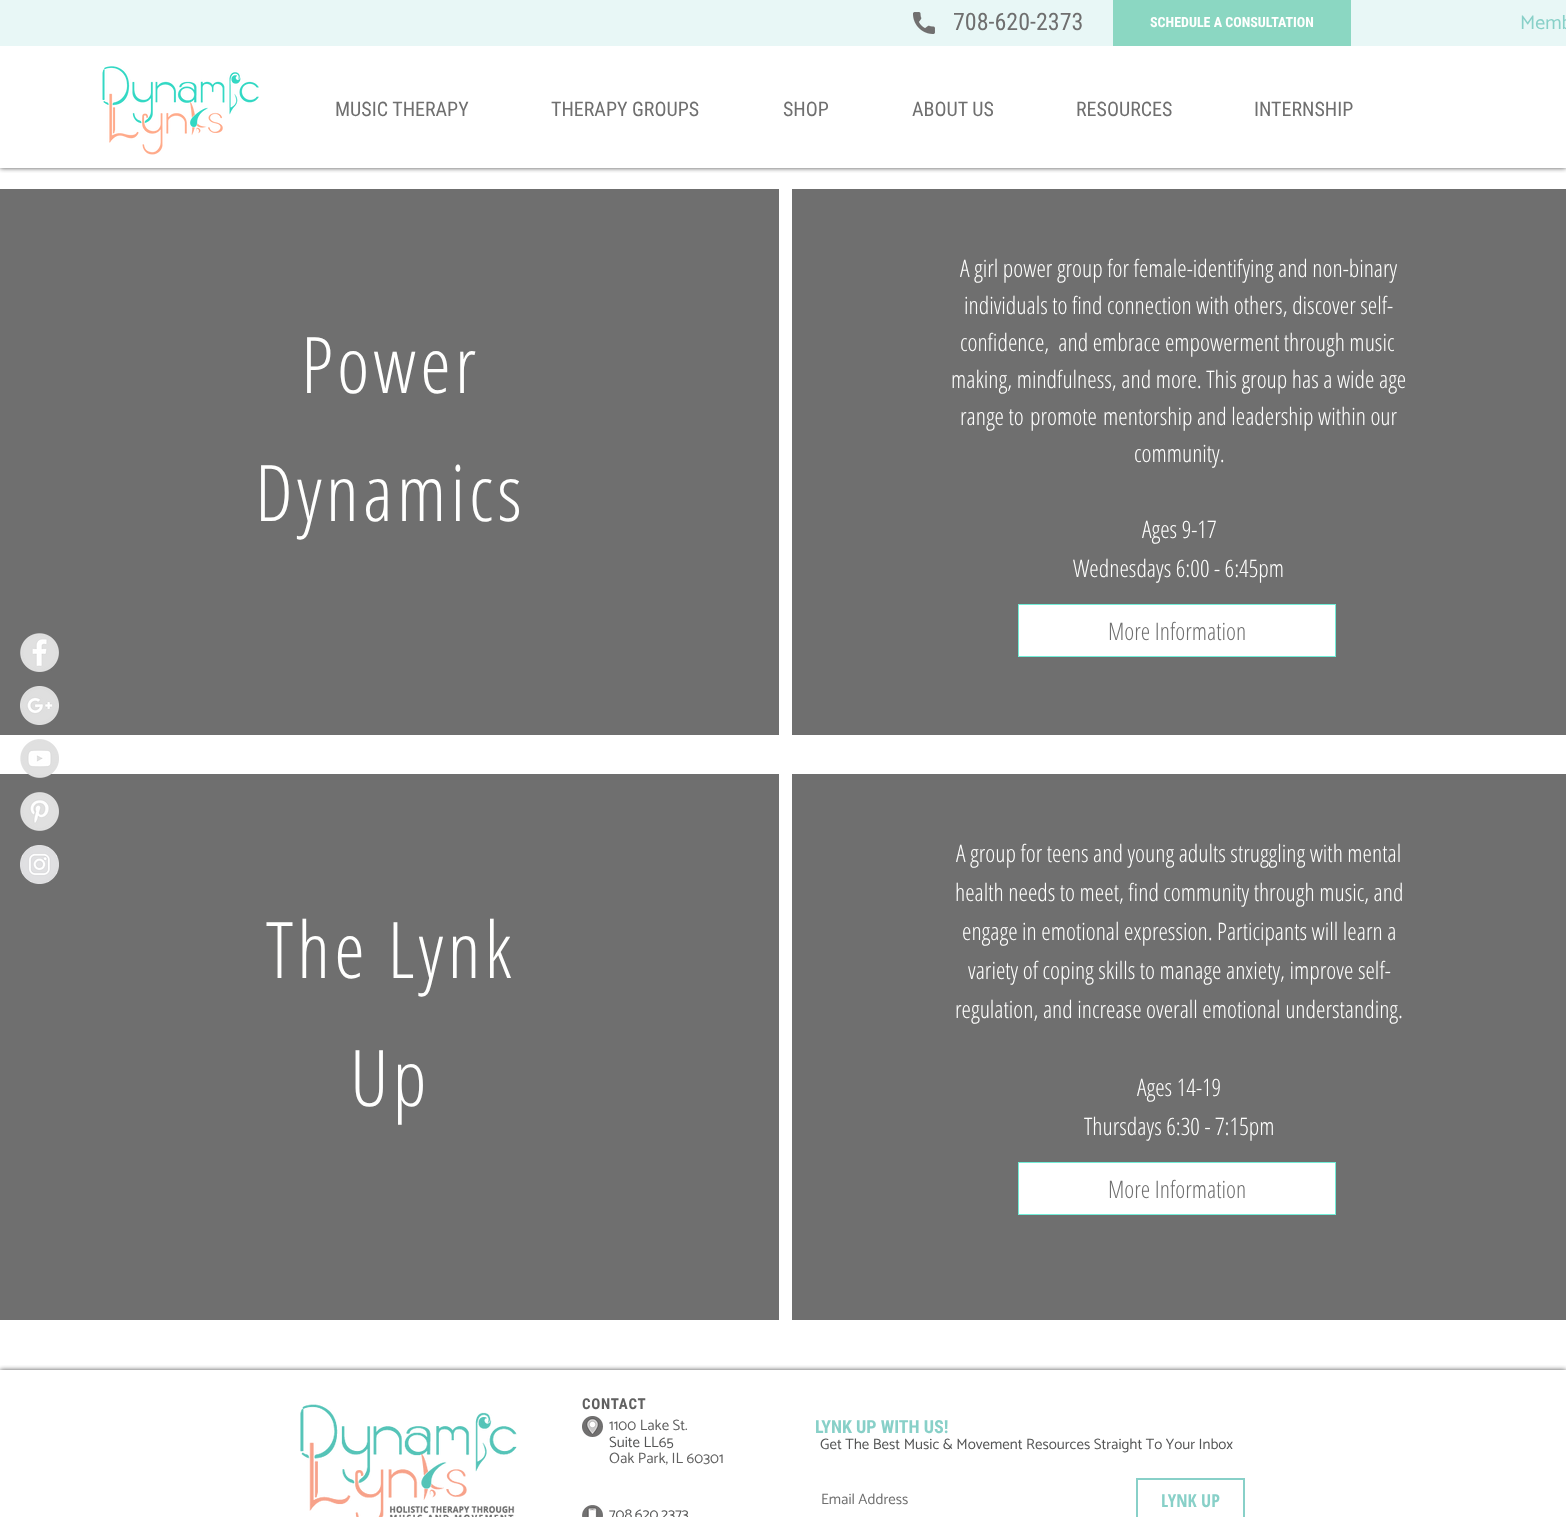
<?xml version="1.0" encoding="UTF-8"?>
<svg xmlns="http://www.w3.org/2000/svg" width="1566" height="1517">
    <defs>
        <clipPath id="clip1"><rect x="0" y="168" width="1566" height="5"/></clipPath>
        <filter id="blur1" x="-50%" y="-200%" width="200%" height="500%"><feGaussianBlur stdDeviation="2.5"/></filter>
        <clipPath id="clip2"><rect x="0" y="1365" width="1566" height="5"/></clipPath>
    </defs>
    <rect width="100%" height="100%" fill="#FFFFFF"/>
    <g clip-path="url(#clip1)">
        <rect x="0" y="0" width="1566" height="168" fill="#000000" fill-opacity="0.7" filter="url(#blur1)"/>
    </g>
    <rect x="0" y="0" width="1566" height="46" fill="#E8F7F6"/>
    <image x="913" y="12" width="22" height="22" href="img_01.png"/>
    <text x="953" y="30" font-family="Roboto Condensed" font-size="24" fill="#6F6F6F">708-620-2373</text>
    <rect x="1113" y="0" width="238" height="46" fill="#8BD7C2"/>
    <text x="1150" y="27" font-family="Roboto Condensed" font-size="14" font-weight="700" fill="#FFFFFE">SCHEDULE A CONSULTATION</text>
    <text x="1520" y="29" font-family="Catamaran" font-size="20" fill="#88D0C8">Memb</text>
    <image x="102" y="66" width="157" height="89" href="img_02.png"/>
    <text x="335" y="116" font-family="Roboto Condensed" font-size="20" fill="#6F6F6F">MUSIC THERAPY</text>
    <text x="551" y="116" font-family="Roboto Condensed" font-size="20" fill="#6F6F6F">THERAPY GROUPS</text>
    <text x="783" y="116" font-family="Roboto Condensed" font-size="20" fill="#6F6F6F">SHOP</text>
    <text x="912" y="116" font-family="Roboto Condensed" font-size="20" fill="#6F6F6F">ABOUT US</text>
    <text x="1076" y="116" font-family="Roboto Condensed" font-size="20" fill="#6F6F6F">RESOURCES</text>
    <text x="1254" y="116" font-family="Roboto Condensed" font-size="20" fill="#6F6F6F">INTERNSHIP</text>
    <rect x="0" y="189" width="779" height="546" fill="#6F6F6F"/>
    <image x="20" y="633" width="39" height="39" href="img_03.png"/>
    <image x="20" y="686" width="39" height="39" href="img_04.png"/>
    <rect x="0" y="774" width="779" height="546" fill="#6F6F6F"/>
    <image x="20" y="739" width="39" height="39" href="img_05.png"/>
    <image x="20" y="792" width="39" height="39" href="img_06.png"/>
    <image x="20" y="845" width="39" height="39" href="img_07.png"/>
    <text x="301" y="393" font-family="Open Sans Condensed" font-size="78" font-weight="300" letter-spacing="4" fill="#FFFFFE">Power</text>
    <text x="255" y="521" font-family="Open Sans Condensed" font-size="78" font-weight="300" letter-spacing="4" fill="#FFFFFE">Dynamics</text>
    <rect x="792" y="189" width="774" height="546" fill="#6F6F6F"/>
    <text x="960" y="277" font-family="Open Sans Condensed" font-size="24" font-weight="300" fill="#FFFFFE">A girl power group for female-identifying and non-binary</text>
    <text x="964" y="314" font-family="Open Sans Condensed" font-size="24" font-weight="300" fill="#FFFFFE">individuals to find connection with others, discover self-</text>
    <text x="960" y="351" font-family="Open Sans Condensed" font-size="24" font-weight="300" fill="#FFFFFE" xml:space="preserve">confidence,  and embrace empowerment through music</text>
    <text x="951" y="388" font-family="Open Sans Condensed" font-size="24" font-weight="300" fill="#FFFFFE">making, mindfulness, and more. This group has a wide age</text>
    <text x="960" y="425" font-family="Open Sans Condensed" font-size="24" font-weight="300" fill="#FFFFFE">range to</text>
    <text x="1030" y="425" font-family="Open Sans Condensed" font-size="24" font-weight="300" fill="#FFFFFE">promote</text>
    <text x="1103" y="425" font-family="Open Sans Condensed" font-size="24" font-weight="300" fill="#FFFFFE">mentorship and leadership within our</text>
    <text x="1134" y="462" font-family="Open Sans Condensed" font-size="24" font-weight="300" fill="#FFFFFE">community.</text>
    <text x="1142" y="538" font-family="Open Sans Condensed" font-size="24" font-weight="300" fill="#FFFFFE">Ages 9-17</text>
    <text x="1073" y="577" font-family="Open Sans Condensed" font-size="24" font-weight="300" fill="#FFFFFE">Wednesdays 6:00 - 6:45pm</text>
    <rect x="1018.5" y="604.5" width="317" height="52" fill="#FFFFFF" stroke="#71EED8"/>
    <text x="1108" y="640" font-family="Open Sans Condensed" font-size="24" font-weight="300" fill="#6F6F6F">More Information</text>
    <text x="266" y="978" font-family="Open Sans Condensed" font-size="78" font-weight="300" letter-spacing="4" fill="#FFFFFE">The Lynk</text>
    <text x="350" y="1106" font-family="Open Sans Condensed" font-size="78" font-weight="300" letter-spacing="4" fill="#FFFFFE">Up</text>
    <rect x="792" y="774" width="774" height="546" fill="#6F6F6F"/>
    <text x="956" y="862" font-family="Open Sans Condensed" font-size="24" font-weight="300" fill="#FFFFFE">A group for teens and young adults struggling with mental</text>
    <text x="955" y="901" font-family="Open Sans Condensed" font-size="24" font-weight="300" fill="#FFFFFE">health needs to meet, find community through music, and</text>
    <text x="962" y="940" font-family="Open Sans Condensed" font-size="24" font-weight="300" fill="#FFFFFE">engage in emotional expression. Participants will learn a</text>
    <text x="968" y="979" font-family="Open Sans Condensed" font-size="24" font-weight="300" fill="#FFFFFE">variety of coping skills to manage anxiety, improve self-</text>
    <text x="955" y="1018" font-family="Open Sans Condensed" font-size="24" font-weight="300" fill="#FFFFFE">regulation, and increase overall emotional understanding.</text>
    <text x="1137" y="1096" font-family="Open Sans Condensed" font-size="24" font-weight="300" fill="#FFFFFE">Ages 14-19</text>
    <text x="1084" y="1135" font-family="Open Sans Condensed" font-size="24" font-weight="300" fill="#FFFFFE">Thursdays 6:30 - 7:15pm</text>
    <rect x="1018.5" y="1162.5" width="317" height="52" fill="#FFFFFF" stroke="#71EED8"/>
    <text x="1108" y="1198" font-family="Open Sans Condensed" font-size="24" font-weight="300" fill="#6F6F6F">More Information</text>
    <g clip-path="url(#clip2)">
        <rect x="0" y="1370" width="1566" height="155" fill="#000000" fill-opacity="0.7" filter="url(#blur1)"/>
    </g>
    <image x="300" y="1403" width="217" height="114" href="img_08.png"/>
    <text x="582" y="1409" font-family="Roboto Condensed" font-size="15" font-weight="700" letter-spacing="0.75" fill="#606060">CONTACT</text>
    <image x="582" y="1416" width="21" height="21" href="img_09.png"/>
    <text x="609" y="1430" font-family="Catamaran" font-size="15" fill="#606060">1100 Lake St.</text>
    <text x="609" y="1447" font-family="Catamaran" font-size="15" fill="#545555">Suite LL65</text>
    <text x="609" y="1463" font-family="Catamaran" font-size="15" fill="#606060">Oak Park, IL 60301</text>
    <image x="582" y="1505" width="21" height="12" href="img_10.png"/>
    <text x="609" y="1519" font-family="Catamaran" font-size="15" fill="#545555">708.620.2373</text>
    <text x="815" y="1433" font-family="Roboto Condensed" font-size="18" font-weight="700" fill="#88D0C8">LYNK UP WITH US!</text>
    <text x="820" y="1449" font-family="Catamaran" font-size="15" fill="#545555">Get The Best Music &amp; Movement Resources Straight To Your Inbox</text>
    <text x="821" y="1504" font-family="Catamaran" font-size="15" fill="#6F6F6F">Email Address</text>
    <rect x="1137" y="1479" width="107" height="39" fill="none" stroke="#88D0C8" stroke-width="2"/>
    <text x="1161" y="1507" font-family="Open Sans Condensed" font-size="18" font-weight="700" fill="#88D0C8">LYNK UP</text>
</svg>
